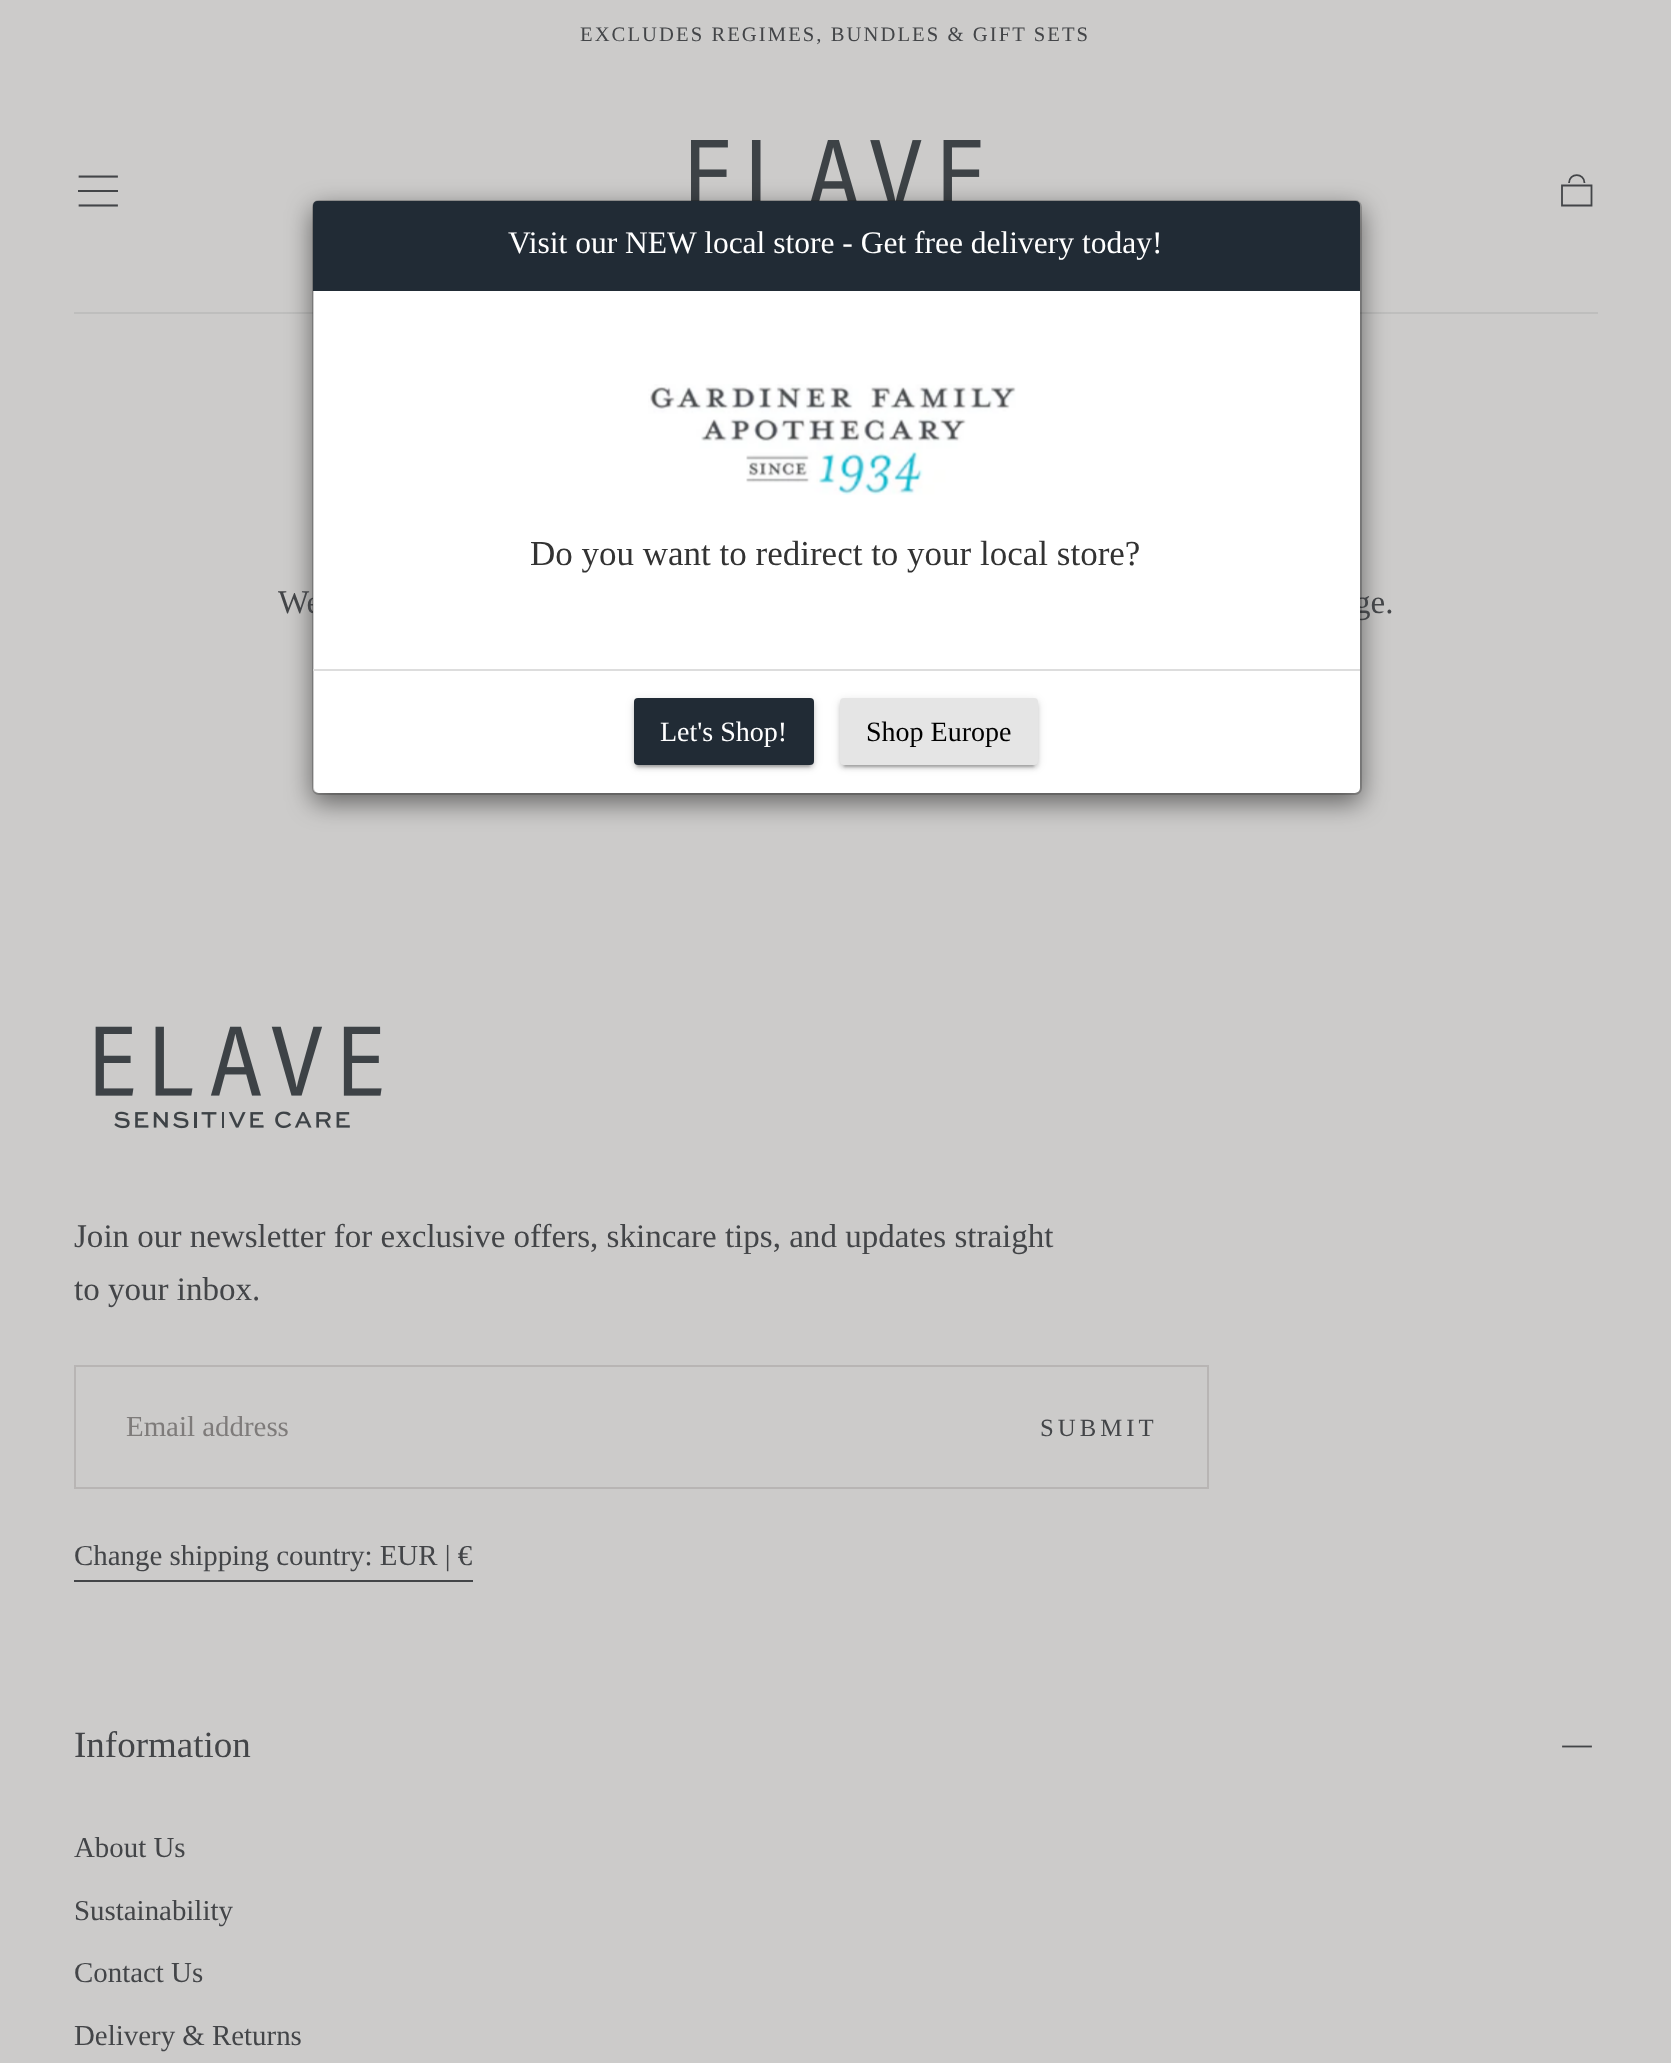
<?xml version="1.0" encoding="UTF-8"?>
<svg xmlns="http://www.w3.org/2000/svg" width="1671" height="2063">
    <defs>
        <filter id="blur1" x="-50%" y="-200%" width="200%" height="500%"><feGaussianBlur stdDeviation="13"/></filter>
        <filter id="blur2" x="-50%" y="-200%" width="200%" height="500%"><feGaussianBlur stdDeviation="4.5"/></filter>
        <filter id="blur3" x="-50%" y="-200%" width="200%" height="500%"><feGaussianBlur stdDeviation="1"/></filter>
        <filter id="blur4" x="-50%" y="-200%" width="200%" height="500%"><feGaussianBlur stdDeviation="2"/></filter>
    </defs>
    <rect width="100%" height="100%" fill="#CCCBCA"/>
    <text x="580" y="41" font-family="Liberation Serif" font-size="20.65" letter-spacing="2.05" fill="#434548">EXCLUDES REGIMES, BUNDLES &amp; GIFT SETS</text>
    <image x="78" y="175" width="40" height="32" href="img_01.png"/>
    <image x="691" y="140" width="290" height="61" href="img_02.png"/>
    <path d="M 1591.5 205.5 H 1562 V 185.5 H 1591.5 Z M 1584.5 183 C 1584.5 172.5 1569 172.5 1569 183" fill="none" stroke="#434548" stroke-width="1.8"/>
    <rect x="74" y="312" width="1524" height="2" fill="#BEBEBD"/>
    <rect x="312" y="208" width="1050" height="595" rx="7" fill="#000000" fill-opacity="0.5" filter="url(#blur1)"/>
    <text x="278" y="613" font-family="Liberation Serif" font-size="33.05" fill="#434548">We</text>
    <text x="1354" y="613" font-family="Liberation Serif" font-size="33.05" fill="#434548">ge.</text>
    <rect x="313" y="201" width="1047" height="592" rx="5" fill="#FFFFFF"/>
    <rect x="313" y="201" width="1048" height="593" rx="6" fill="none" stroke="#000000" stroke-opacity="0.2" stroke-width="2"/>
    <path d="M 317 201 H 1356 C 1358 201 1360 203 1360 205 V 291 H 313 V 205 C 313 203 315 201 317 201 Z" fill="#212B35"/>
    <text x="508" y="253" font-family="Liberation Serif" font-size="31.5" fill="#FFFFFF">Visit our NEW local store - Get free delivery today!</text>
    <image x="648" y="384" width="368" height="111" href="img_03.png"/>
    <text x="530" y="565" font-family="Liberation Serif" font-size="35" fill="#333333">Do you want to redirect to your local store?</text>
    <rect x="313" y="669" width="1047" height="2" fill="#DDDDDD"/>
    <rect x="634" y="700" width="180" height="67" rx="4" fill="#000000" fill-opacity="0.12" filter="url(#blur2)"/>
    <rect x="637" y="707" width="173" height="60" fill="#000000" fill-opacity="0.2" filter="url(#blur3)"/>
    <rect x="634" y="702" width="180" height="66" rx="4" fill="#000000" fill-opacity="0.14" filter="url(#blur4)"/>
    <rect x="634" y="698" width="180" height="67" rx="4" fill="#212B35"/>
    <text x="660" y="741" font-family="Liberation Serif" font-size="28" fill="#FFFFFF">Let's Shop!</text>
    <rect x="840" y="700" width="198" height="67" rx="4" fill="#000000" fill-opacity="0.12" filter="url(#blur2)"/>
    <rect x="844" y="707" width="190" height="60" fill="#000000" fill-opacity="0.2" filter="url(#blur3)"/>
    <rect x="840" y="702" width="198" height="66" rx="4" fill="#000000" fill-opacity="0.14" filter="url(#blur4)"/>
    <rect x="840" y="698" width="198" height="67" rx="4" fill="#E5E5E5"/>
    <text x="866" y="741" font-family="Liberation Serif" font-size="28" fill="#000000">Shop Europe</text>
    <image x="95" y="1026" width="287" height="103" href="img_04.png"/>
    <text font-family="Liberation Serif" font-size="33.05" fill="#434548">
        <tspan x="74" y="1247">Join our newsletter for exclusive offers, skincare tips, and updates straight</tspan>
        <tspan x="74" y="1300">to your inbox.</tspan>
    </text>
    <rect x="75" y="1366" width="1133" height="122" fill="none" stroke="#B8B5B4" stroke-width="2"/>
    <text x="126" y="1436" font-family="Liberation Serif" font-size="28.9" fill="#7E7B7A">Email address</text>
    <text x="1040" y="1436" font-family="Liberation Serif" font-size="24.75" letter-spacing="4" fill="#434548">SUBMIT</text>
    <text x="74" y="1565" font-family="Liberation Serif" font-size="28.9" fill="#434548">Change shipping country: EUR | €</text>
    <rect x="74" y="1580" width="399" height="2" fill="#434548"/>
    <text x="74" y="1757" font-family="Liberation Serif" font-size="37" fill="#434548">Information</text>
    <path d="M 1563 1746.5 H 1591" fill="none" stroke="#434548" stroke-width="1.8" stroke-linecap="square"/>
    <text x="74" y="1857" font-family="Liberation Serif" font-size="28.9" fill="#434548">About Us</text>
    <text x="74" y="1920" font-family="Liberation Serif" font-size="28.9" fill="#434548">Sustainability</text>
    <text x="74" y="1982" font-family="Liberation Serif" font-size="28.9" fill="#434548">Contact Us</text>
    <text x="74" y="2045" font-family="Liberation Serif" font-size="28.9" fill="#434548">Delivery &amp; Returns</text>
</svg>
